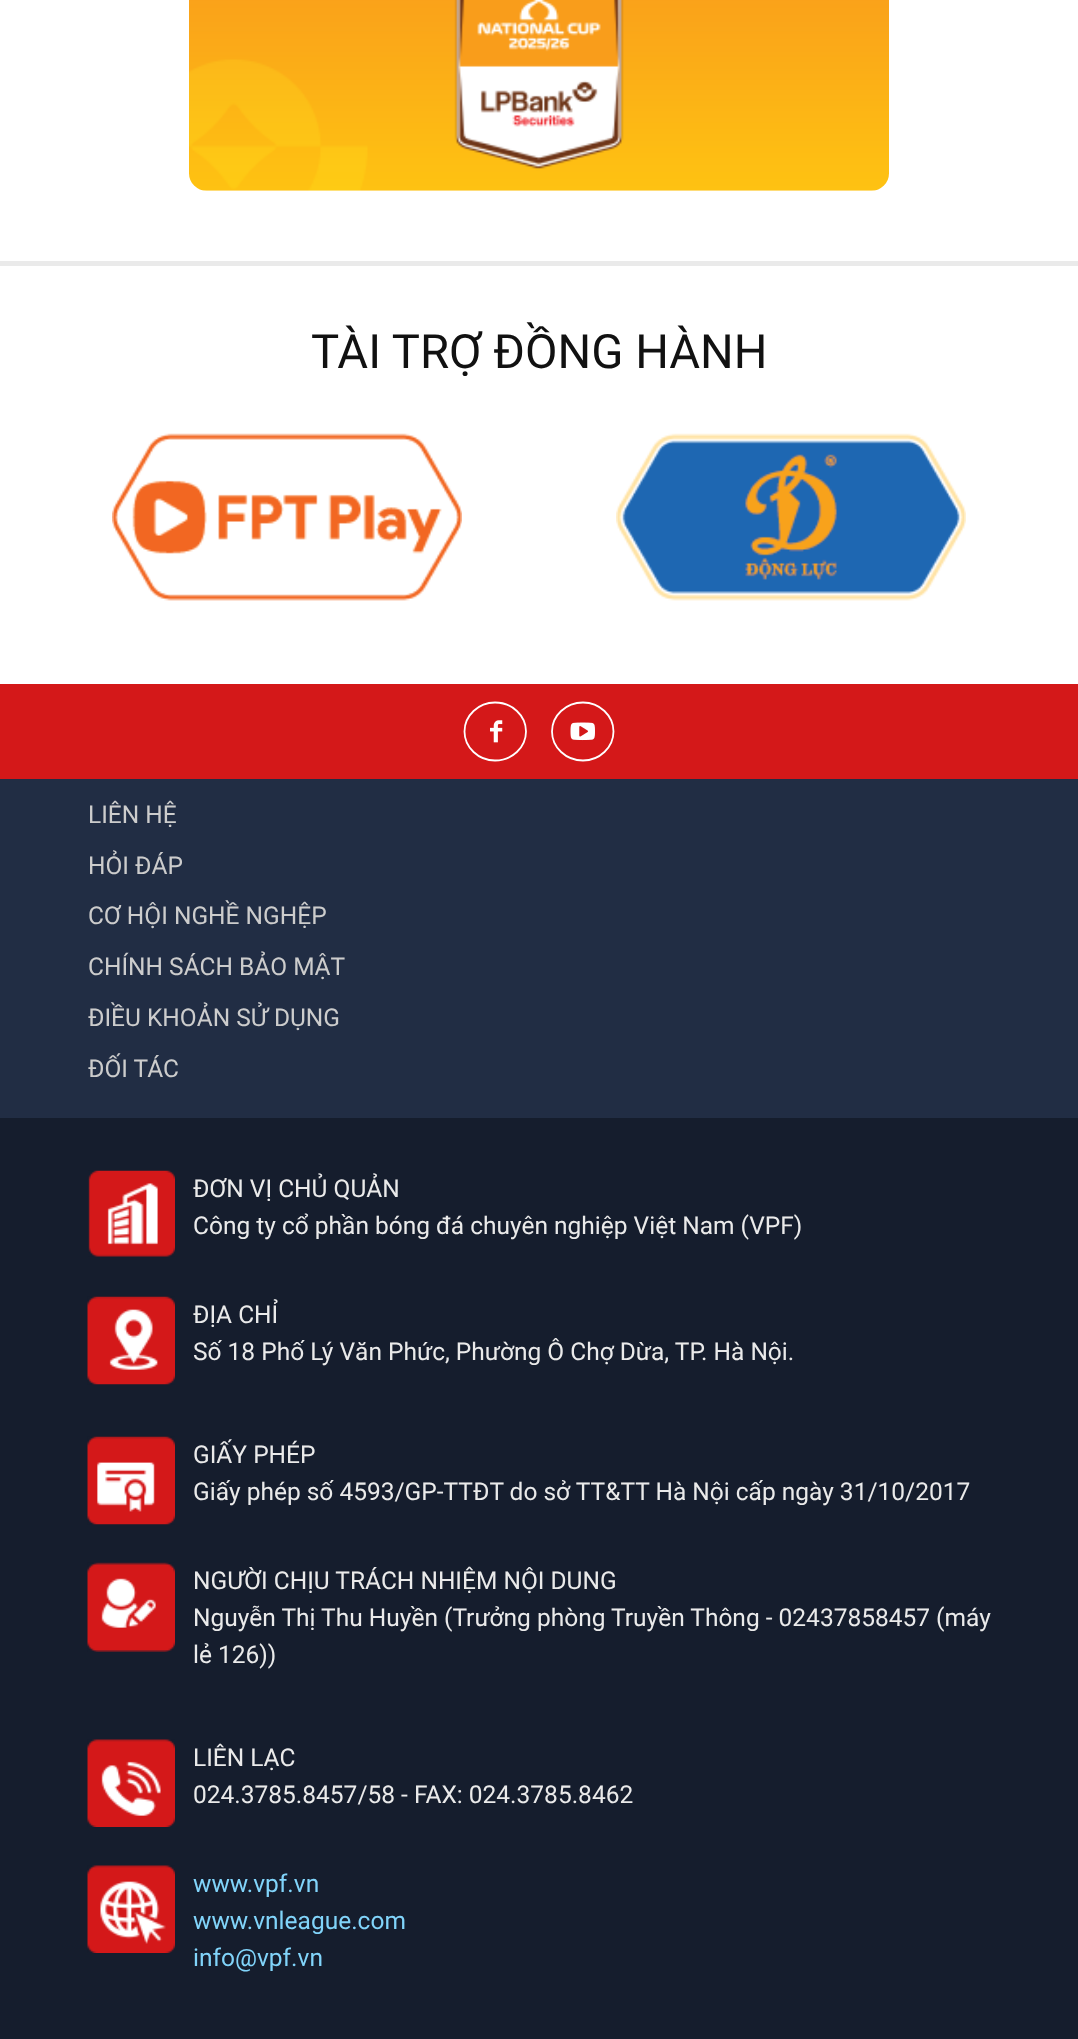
<?xml version="1.0" encoding="UTF-8"?>
<svg xmlns="http://www.w3.org/2000/svg" width="1078" height="2039">
    <rect width="100%" height="100%" fill="#D41819"/>
    <rect x="0" y="0" width="1078" height="684" fill="#FFFFFF"/>
    <rect x="0" y="261" width="1078" height="5" fill="#EAEAEA"/>
    <image x="189" y="0" width="700" height="191" href="img_01.png"/>
    <text x="311" y="368" font-family="Roboto" font-size="47.25" fill="#111111">TÀI TRỢ ĐỒNG HÀNH</text>
    <image x="112" y="433" width="350" height="168" href="img_02.png"/>
    <image x="616" y="433" width="350" height="168" href="img_03.png"/>
    <path d="M 495 702.5 C 512 702.5 526 715.5 526 731.5 C 526 747.5 512 760.5 495 760.5 C 478.5 760.5 464.5 747.5 464.5 731.5 C 464.5 715.5 478.5 702.5 495 702.5 Z" fill="none" stroke="#FFFFFF" stroke-width="1.8"/>
    <image x="490" y="720" width="13" height="23" href="img_04.png"/>
    <path d="M 583 702.5 C 599.5 702.5 613.5 715.5 613.5 731.5 C 613.5 747.5 599.5 760.5 583 760.5 C 566 760.5 552 747.5 552 731.5 C 552 715.5 566 702.5 583 702.5 Z" fill="none" stroke="#FFFFFF" stroke-width="1.8"/>
    <image x="570" y="722" width="25" height="19" href="img_05.png"/>
    <rect x="0" y="779" width="1078" height="339" fill="#212D44"/>
    <text x="88" y="823" font-family="Roboto" font-size="24.5" fill="#CCCCCC">LIÊN HỆ</text>
    <text x="88" y="874" font-family="Roboto" font-size="24.5" fill="#CCCCCC">HỎI ĐÁP</text>
    <text x="88" y="924" font-family="Roboto" font-size="24.5" fill="#CCCCCC">CƠ HỘI NGHỀ NGHỆP</text>
    <text x="88" y="975" font-family="Roboto" font-size="24.5" fill="#CCCCCC">CHÍNH SÁCH BẢO MẬT</text>
    <text x="88" y="1026" font-family="Roboto" font-size="24.5" fill="#CCCCCC">ĐIỀU KHOẢN SỬ DỤNG</text>
    <text x="88" y="1077" font-family="Roboto" font-size="24.5" fill="#CCCCCC">ĐỐI TÁC</text>
    <rect x="0" y="1118" width="1078" height="921" fill="#151D2D"/>
    <image x="88" y="1170" width="87" height="87" href="img_06.png"/>
    <text font-family="Roboto" font-size="24.5" fill="#EAEAEA">
        <tspan x="193" y="1197">ĐƠN VỊ CHỦ QUẢN</tspan>
        <tspan x="193" y="1234">Công ty cổ phần bóng đá chuyên nghiệp Việt Nam (VPF)</tspan>
    </text>
    <image x="87" y="1296" width="88" height="89" href="img_07.png"/>
    <text font-family="Roboto" font-size="24.5" fill="#EAEAEA">
        <tspan x="193" y="1323">ĐỊA CHỈ</tspan>
        <tspan x="193" y="1360">Số 18 Phố Lý Văn Phức, Phường Ô Chợ Dừa, TP. Hà Nội.</tspan>
    </text>
    <image x="87" y="1436" width="88" height="89" href="img_08.png"/>
    <text font-family="Roboto" font-size="24.5" fill="#EAEAEA">
        <tspan x="193" y="1463">GIẤY PHÉP</tspan>
        <tspan x="193" y="1500">Giấy phép số 4593/GP-TTĐT do sở TT&amp;TT Hà Nội cấp ngày 31/10/2017</tspan>
    </text>
    <image x="87" y="1562" width="88" height="90" href="img_09.png"/>
    <text font-family="Roboto" font-size="24.5" fill="#EAEAEA">
        <tspan x="193" y="1589">NGƯỜI CHỊU TRÁCH NHIỆM NỘI DUNG</tspan>
        <tspan x="193" y="1626">Nguyễn Thị Thu Huyền (Trưởng phòng Truyền Thông - 02437858457 (máy</tspan>
        <tspan x="193" y="1663">lẻ 126))</tspan>
    </text>
    <image x="87" y="1739" width="88" height="88" href="img_10.png"/>
    <text font-family="Roboto" font-size="24.5" fill="#EAEAEA">
        <tspan x="193" y="1766">LIÊN LẠC</tspan>
        <tspan x="193" y="1803">024.3785.8457/58 - FAX: 024.3785.8462</tspan>
    </text>
    <image x="87" y="1865" width="88" height="88" href="img_11.png"/>
    <text font-family="Roboto" font-size="24.5" fill="#81D4FA">
        <tspan x="193" y="1892">www.vpf.vn</tspan>
        <tspan x="193" y="1929">www.vnleague.com</tspan>
        <tspan x="193" y="1966">info@vpf.vn</tspan>
    </text>
</svg>
